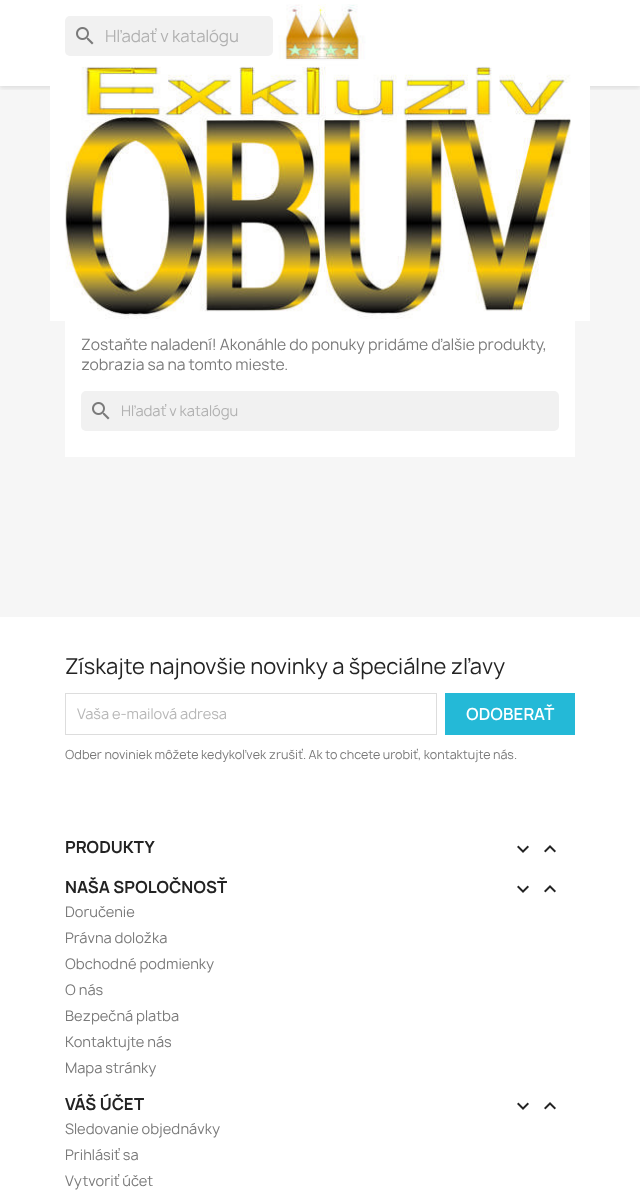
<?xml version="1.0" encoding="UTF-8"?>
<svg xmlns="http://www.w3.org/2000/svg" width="640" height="1201">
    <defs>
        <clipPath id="clip1"><rect x="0" y="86" width="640" height="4"/></clipPath>
        <filter id="blur1" x="-50%" y="-200%" width="200%" height="500%"><feGaussianBlur stdDeviation="2.5"/></filter>
    </defs>
    <rect width="100%" height="100%" fill="#FFFFFF"/>
    <rect x="0" y="86" width="640" height="531" fill="#F6F6F6"/>
    <g clip-path="url(#clip1)">
        <rect x="0" y="-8" width="640" height="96" fill="#000000" fill-opacity="0.11" filter="url(#blur1)"/>
    </g>
    <image x="50" y="4" width="540" height="317" href="img_01.png"/>
    <rect x="65" y="16" width="208" height="40" rx="5" fill="#F1F1F1"/>
    <image x="76" y="27" width="18" height="18" href="img_02.png"/>
    <text x="105" y="42" font-family="Manrope" font-size="16" fill="#B1B1B1">Hľadať v katalógu</text>
    <rect x="65" y="321" width="510" height="136" fill="#FFFFFF"/>
    <text font-family="Manrope" font-size="15" fill="#7A7A7A">
        <tspan x="81" y="350">Zostaňte naladení! Akonáhle do ponuky pridáme ďalšie produkty,</tspan>
        <tspan x="81" y="370">zobrazia sa na tomto mieste.</tspan>
    </text>
    <rect x="81" y="391" width="478" height="40" rx="5" fill="#F1F1F1"/>
    <image x="92" y="402" width="18" height="18" href="img_02.png"/>
    <text x="121" y="416" font-family="Manrope" font-size="14" fill="#B1B1B1">Hľadať v katalógu</text>
    <text x="65" y="674" font-family="Manrope" font-size="21" fill="#232323">Získajte najnovšie novinky a špeciálne zľavy</text>
    <rect x="65.5" y="693.5" width="371" height="41" fill="none" stroke="#DDDDDD"/>
    <text x="77" y="719" font-family="Manrope" font-size="14" fill="#B7B7B7">Vaša e-mailová adresa</text>
    <rect x="445" y="693" width="130" height="42" fill="#24B9D7"/>
    <text x="466" y="720" font-family="Manrope" font-size="16" font-weight="600" fill="#FFFFFF">ODOBERAŤ</text>
    <text x="65" y="759" font-family="Manrope" font-size="12" fill="#7A7A7A">Odber noviniek môžete kedykoľvek zrušiť. Ak to chcete urobiť, kontaktujte nás.</text>
    <text x="65" y="853" font-family="Manrope" font-size="16" font-weight="700" fill="#232323">PRODUKTY</text>
    <image x="517" y="845" width="12" height="8" href="img_03.png"/>
    <image x="544" y="845" width="12" height="8" href="img_04.png"/>
    <text x="65" y="893" font-family="Manrope" font-size="16" font-weight="700" fill="#232323">NAŠA SPOLOČNOSŤ</text>
    <image x="517" y="885" width="12" height="8" href="img_03.png"/>
    <image x="544" y="885" width="12" height="8" href="img_04.png"/>
    <text font-family="Manrope" font-size="14" fill="#7A7A7A">
        <tspan x="65" y="917">Doručenie</tspan>
        <tspan x="65" y="943">Právna doložka</tspan>
        <tspan x="65" y="969">Obchodné podmienky</tspan>
        <tspan x="65" y="995">O nás</tspan>
        <tspan x="65" y="1021">Bezpečná platba</tspan>
        <tspan x="65" y="1047">Kontaktujte nás</tspan>
        <tspan x="65" y="1073">Mapa stránky</tspan>
    </text>
    <text x="65" y="1110" font-family="Manrope" font-size="16" font-weight="700" fill="#232323">VÁŠ ÚČET</text>
    <image x="517" y="1102" width="12" height="8" href="img_03.png"/>
    <image x="544" y="1102" width="12" height="8" href="img_04.png"/>
    <text font-family="Manrope" font-size="14" fill="#7A7A7A">
        <tspan x="65" y="1134">Sledovanie objednávky</tspan>
        <tspan x="65" y="1160">Prihlásiť sa</tspan>
        <tspan x="65" y="1186">Vytvoriť účet</tspan>
    </text>
</svg>
